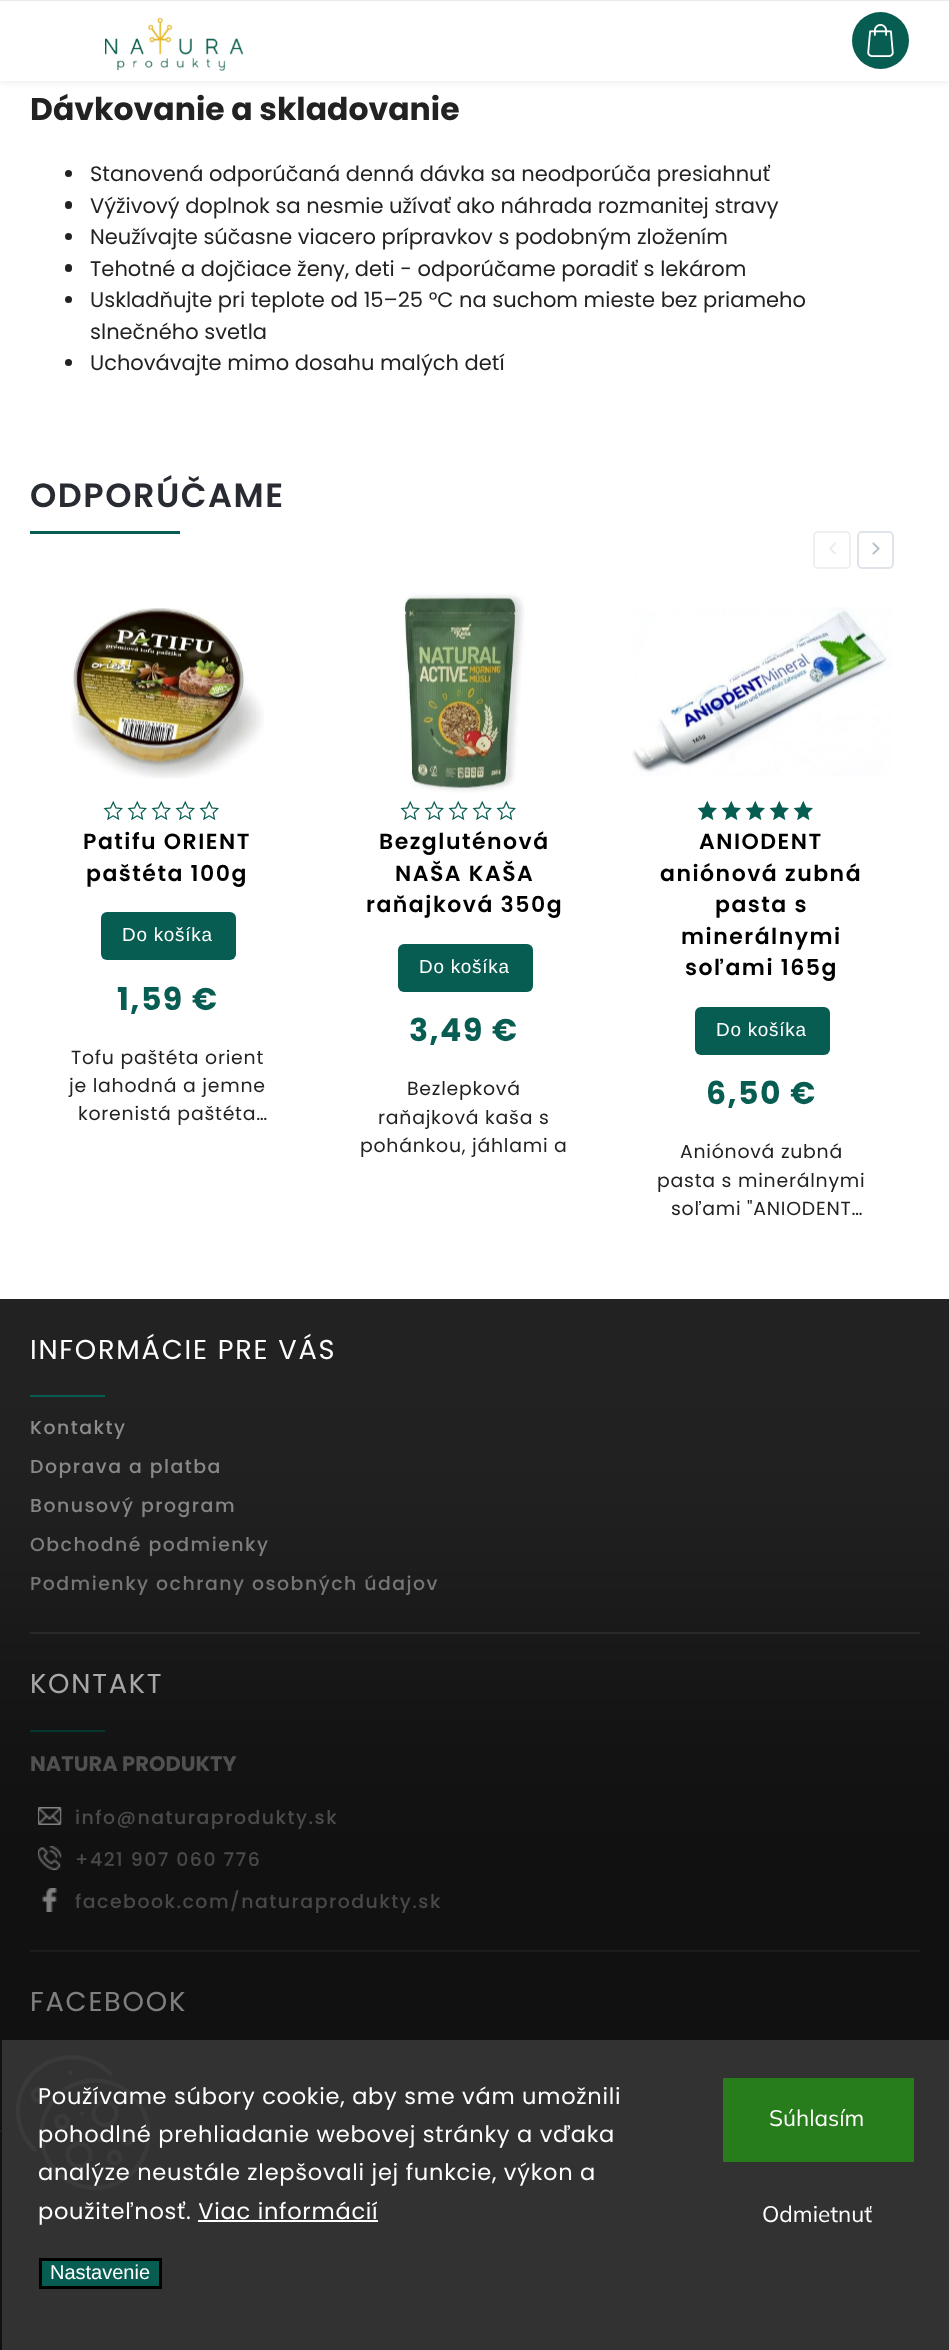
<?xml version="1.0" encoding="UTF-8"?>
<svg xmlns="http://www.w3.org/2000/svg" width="949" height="2350">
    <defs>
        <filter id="blur1" x="-50%" y="-200%" width="200%" height="500%"><feGaussianBlur stdDeviation="4"/></filter>
        <clipPath id="clip1"><path d="M 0 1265 H 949 V 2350 H 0 Z M 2 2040 H 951 V 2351 H 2 Z" clip-rule="evenodd"/></clipPath>
        <filter id="blur2" x="-50%" y="-200%" width="200%" height="500%"><feGaussianBlur stdDeviation="120"/></filter>
    </defs>
    <rect width="100%" height="100%" fill="#FFFFFF"/>
    <rect x="0" y="-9" width="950" height="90" fill="#000000" fill-opacity="0.1" filter="url(#blur1)"/>
    <rect x="0" y="1" width="949" height="80" fill="#FFFFFF"/>
    <image x="105" y="18" width="139" height="53" href="img_01.png"/>
    <circle cx="880.5" cy="40.5" r="28.5" fill="#085D52"/>
    <image x="867" y="24" width="27" height="33" href="img_02.png"/>
    <rect x="0" y="0" width="949" height="1" fill="#EAEAEA"/>
    <text x="30" y="120" font-family="Poppins" font-size="31.5" font-weight="700" fill="#222222">Dávkovanie a skladovanie</text>
    <circle cx="68.5" cy="173.5" r="3.5" fill="#222222"/>
    <text x="90" y="181" font-family="Poppins" font-size="21" fill="#222222">Stanovená odporúčaná denná dávka sa neodporúča presiahnuť</text>
    <rect x="65" y="201" width="7" height="8" rx="3.5" fill="#222222"/>
    <text x="90" y="213" font-family="Poppins" font-size="21" fill="#222222">Výživový doplnok sa nesmie užívať ako náhrada rozmanitej stravy</text>
    <circle cx="68.5" cy="236.5" r="3.5" fill="#222222"/>
    <text x="90" y="244" font-family="Poppins" font-size="21" fill="#222222">Neužívajte súčasne viacero prípravkov s podobným zložením</text>
    <rect x="65" y="264" width="7" height="8" rx="3.5" fill="#222222"/>
    <text x="90" y="276" font-family="Poppins" font-size="21" fill="#222222">Tehotné a dojčiace ženy, deti - odporúčame poradiť s lekárom</text>
    <circle cx="68.5" cy="299.5" r="3.5" fill="#222222"/>
    <text font-family="Poppins" font-size="21" fill="#222222">
        <tspan x="90" y="307">Uskladňujte pri teplote od 15–25 °C na suchom mieste bez priameho</tspan>
        <tspan x="90" y="339">slnečného svetla</tspan>
    </text>
    <circle cx="68.5" cy="362.5" r="3.5" fill="#222222"/>
    <text x="90" y="370" font-family="Poppins" font-size="21" fill="#222222">Uchovávajte mimo dosahu malých detí</text>
    <text x="30" y="507" font-family="Poppins" font-size="33.5" font-weight="600" letter-spacing="1.5" fill="#292B32">ODPORÚČAME</text>
    <rect x="30" y="531" width="150" height="3" fill="#085D52"/>
    <image x="829" y="542" width="7" height="13" href="img_03.png"/>
    <rect x="814" y="532" width="36" height="36" rx="4" fill="none" stroke="#F0F0F0" stroke-width="2"/>
    <image x="872" y="542" width="8" height="13" href="img_04.png"/>
    <rect x="858" y="532" width="35" height="36" rx="4" fill="none" stroke="#DFE4EB" stroke-width="2"/>
    <image x="71" y="608" width="193" height="171" href="img_05.png"/>
    <image x="103" y="800" width="20" height="21" href="img_06.png"/>
    <image x="127" y="800" width="20" height="21" href="img_06.png"/>
    <image x="151" y="800" width="20" height="21" href="img_06.png"/>
    <image x="175" y="800" width="20" height="21" href="img_06.png"/>
    <image x="199" y="800" width="20" height="21" href="img_06.png"/>
    <text x="83" y="849" font-family="Poppins" font-size="22" font-weight="600" letter-spacing="1.5" fill="#000000">Patifu ORIENT</text>
    <text x="86" y="881" font-family="Poppins" font-size="22" font-weight="600" letter-spacing="1.5" fill="#000000">paštéta 100g</text>
    <rect x="101" y="912" width="135" height="48" rx="6" fill="#085D52"/>
    <text x="122" y="941" font-family="Liberation Sans" font-size="18.9" letter-spacing="0.75" fill="#FFFFFF">Do košíka</text>
    <text x="117" y="1010" font-family="Poppins" font-size="31.5" font-weight="700" letter-spacing="1.5" fill="#085D52">1,59 €</text>
    <text x="71" y="1064" font-family="Poppins" font-size="18.9" letter-spacing="0.75" fill="#222222">Tofu paštéta orient</text>
    <text x="69" y="1092" font-family="Poppins" font-size="18.9" letter-spacing="0.75" fill="#222222">je lahodná a jemne</text>
    <text x="78" y="1120" font-family="Poppins" font-size="18.9" letter-spacing="0.75" fill="#222222">korenistá paštéta…</text>
    <image x="403" y="592" width="122" height="201" href="img_07.png"/>
    <image x="400" y="800" width="20" height="21" href="img_06.png"/>
    <image x="424" y="800" width="20" height="21" href="img_06.png"/>
    <image x="448" y="800" width="20" height="21" href="img_06.png"/>
    <image x="472" y="800" width="20" height="21" href="img_06.png"/>
    <image x="496" y="800" width="20" height="21" href="img_06.png"/>
    <text x="379" y="849" font-family="Poppins" font-size="22" font-weight="600" letter-spacing="1.5" fill="#000000">Bezgluténová</text>
    <text x="395" y="881" font-family="Poppins" font-size="22" font-weight="600" letter-spacing="1.5" fill="#000000">NAŠA KAŠA</text>
    <text x="366" y="912" font-family="Poppins" font-size="22" font-weight="600" letter-spacing="1.5" fill="#000000">raňajková 350g</text>
    <rect x="398" y="944" width="135" height="48" rx="6" fill="#085D52"/>
    <text x="419" y="973" font-family="Liberation Sans" font-size="18.9" letter-spacing="0.75" fill="#FFFFFF">Do košíka</text>
    <text x="409" y="1041" font-family="Poppins" font-size="31.5" font-weight="700" letter-spacing="1.5" fill="#085D52">3,49 €</text>
    <text x="407" y="1095" font-family="Poppins" font-size="18.9" letter-spacing="0.75" fill="#222222">Bezlepková</text>
    <text x="378" y="1124" font-family="Poppins" font-size="18.9" letter-spacing="0.75" fill="#222222">raňajková kaša s</text>
    <text x="360" y="1152" font-family="Poppins" font-size="18.9" letter-spacing="0.75" fill="#222222">pohánkou, jáhlami a</text>
    <image x="632" y="607" width="260" height="169" href="img_08.png"/>
    <image x="697" y="800" width="20" height="21" href="img_09.png"/>
    <image x="721" y="800" width="20" height="21" href="img_09.png"/>
    <image x="745" y="800" width="20" height="21" href="img_09.png"/>
    <image x="769" y="800" width="20" height="21" href="img_09.png"/>
    <image x="793" y="800" width="20" height="21" href="img_09.png"/>
    <text x="699" y="849" font-family="Poppins" font-size="22" font-weight="600" letter-spacing="1.5" fill="#000000">ANIODENT</text>
    <text x="660" y="881" font-family="Poppins" font-size="22" font-weight="600" letter-spacing="1.5" fill="#000000">aniónová zubná</text>
    <text x="715" y="912" font-family="Poppins" font-size="22" font-weight="600" letter-spacing="1.5" fill="#000000">pasta s</text>
    <text x="681" y="944" font-family="Poppins" font-size="22" font-weight="600" letter-spacing="1.5" fill="#000000">minerálnymi</text>
    <text x="685" y="975" font-family="Poppins" font-size="22" font-weight="600" letter-spacing="1.5" fill="#000000">soľami 165g</text>
    <rect x="695" y="1007" width="135" height="48" rx="6" fill="#085D52"/>
    <text x="716" y="1036" font-family="Liberation Sans" font-size="18.9" letter-spacing="0.75" fill="#FFFFFF">Do košíka</text>
    <text x="706" y="1104" font-family="Poppins" font-size="31.5" font-weight="700" letter-spacing="1.5" fill="#085D52">6,50 €</text>
    <text x="680" y="1158" font-family="Poppins" font-size="18.9" letter-spacing="0.75" fill="#222222">Aniónová zubná</text>
    <text x="657" y="1187" font-family="Poppins" font-size="18.9" letter-spacing="0.75" fill="#222222">pasta s minerálnymi</text>
    <text x="671" y="1215" font-family="Poppins" font-size="18.9" letter-spacing="0.75" fill="#222222">soľami "ANIODENT…</text>
    <rect x="0" y="1299" width="949" height="1051" fill="#222222"/>
    <rect x="30" y="1632" width="890" height="2" fill="#383838"/>
    <text x="30" y="1359" font-family="Poppins" font-size="27.25" letter-spacing="1.75" fill="#FFFFFF">INFORMÁCIE PRE VÁS</text>
    <rect x="30" y="1395" width="75" height="2" fill="#085D52"/>
    <text x="30" y="1434" font-family="Poppins" font-size="18.9" font-weight="500" letter-spacing="1.5" fill="#909090">Kontakty</text>
    <text x="30" y="1473" font-family="Poppins" font-size="18.9" font-weight="500" letter-spacing="1.5" fill="#909090">Doprava a platba</text>
    <text x="30" y="1512" font-family="Poppins" font-size="18.9" font-weight="500" letter-spacing="1.5" fill="#909090">Bonusový program</text>
    <text x="30" y="1551" font-family="Poppins" font-size="18.9" font-weight="500" letter-spacing="1.5" fill="#909090">Obchodné podmienky</text>
    <text x="30" y="1590" font-family="Poppins" font-size="18.9" font-weight="500" letter-spacing="1.5" fill="#909090">Podmienky ochrany osobných údajov</text>
    <rect x="30" y="1950" width="890" height="2" fill="#383838"/>
    <text x="30" y="1693" font-family="Poppins" font-size="27.25" letter-spacing="1.75" fill="#FFFFFF">KONTAKT</text>
    <rect x="30" y="1730" width="75" height="2" fill="#085D52"/>
    <text x="30" y="1771" font-family="Poppins" font-size="21" font-weight="700" fill="#909090">NATURA PRODUKTY</text>
    <image x="38" y="1807" width="24" height="18" href="img_10.png"/>
    <text x="75" y="1824" font-family="Poppins" font-size="18.9" font-weight="500" letter-spacing="1.5" fill="#909090">info@naturaprodukty.sk</text>
    <image x="38" y="1846" width="24" height="24" href="img_11.png"/>
    <text x="75" y="1866" font-family="Poppins" font-size="18.9" font-weight="500" letter-spacing="1.5" fill="#909090">+421 907 060 776</text>
    <image x="42" y="1888" width="15" height="24" href="img_12.png"/>
    <text x="75" y="1908" font-family="Poppins" font-size="18.9" font-weight="500" letter-spacing="1.5" fill="#909090">facebook.com/naturaprodukty.sk</text>
    <text x="30" y="2011" font-family="Poppins" font-size="27.25" letter-spacing="1.75" fill="#FFFFFF">FACEBOOK</text>
    <rect x="0" y="2130" width="2" height="2" fill="#393939"/>
    <g clip-path="url(#clip1)">
        <rect x="-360" y="1626" width="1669" height="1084" fill="#000000" fill-opacity="0.5" filter="url(#blur2)"/>
    </g>
    <rect x="2" y="2040" width="947" height="310" fill="#323232"/>
    <image x="16" y="2055" width="134" height="135" href="img_13.png"/>
    <text font-family="Poppins" font-size="22.5" letter-spacing="0.75" fill="#FFFFFF">
        <tspan x="38" y="2104">Používame súbory cookie, aby sme vám umožnili</tspan>
        <tspan x="38" y="2142">pohodlné prehliadanie webovej stránky a vďaka</tspan>
        <tspan x="38" y="2180">analýze neustále zlepšovali jej funkcie, výkon a</tspan>
        <tspan x="38" y="2219">použiteľnosť. Viac informácií</tspan>
    </text>
    <rect x="198" y="2220" width="180" height="2" fill="#FFFFFF"/>
    <rect x="40.5" y="2259.5" width="120" height="28" fill="#085D52" stroke="#000000" stroke-width="3"/>
    <text x="50" y="2279" font-family="Liberation Sans" font-size="20" fill="#FFFFFF">Nastavenie</text>
    <rect x="723" y="2078" width="191" height="84" fill="#277C1B"/>
    <text x="769" y="2126" font-family="Mulish" font-size="22.5" fill="#FFFFFF">Súhlasím</text>
    <text x="762" y="2222" font-family="Mulish" font-size="22.5" fill="#FFFFFF">Odmietnuť</text>
</svg>
